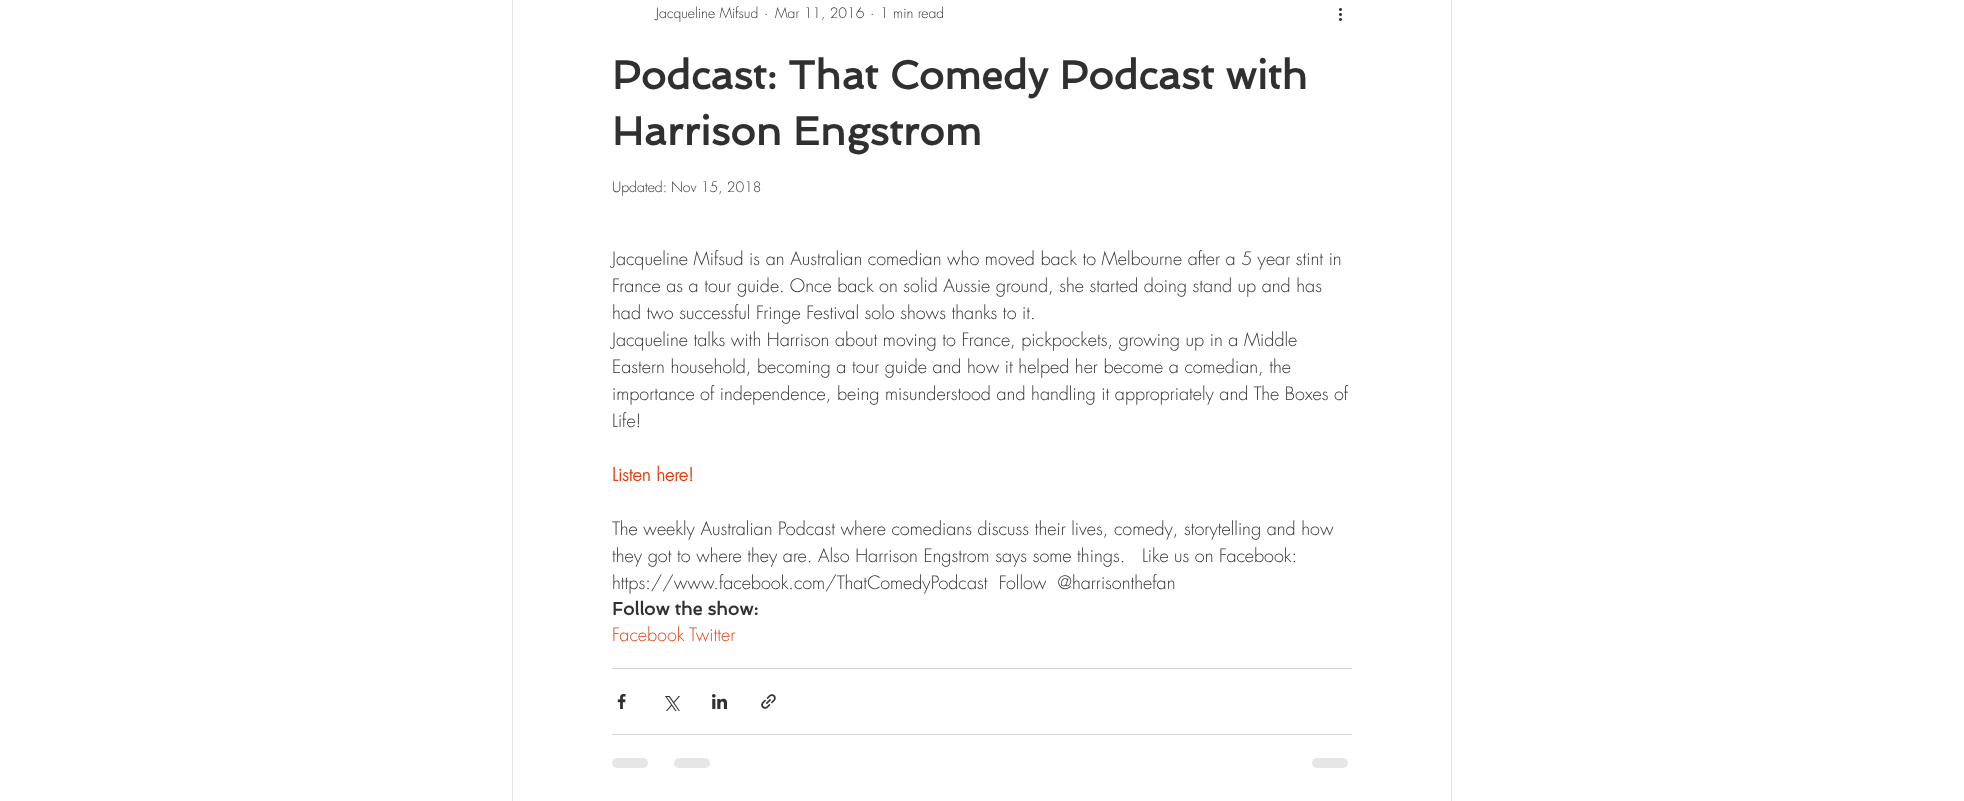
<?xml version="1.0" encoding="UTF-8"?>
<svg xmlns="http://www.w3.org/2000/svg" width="1964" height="801">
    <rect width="100%" height="100%" fill="#FFFFFF"/>
    <rect x="512.5" y="-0.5" width="939" height="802" fill="none" stroke="#E5E5E5"/>
    <text x="656" y="18" font-family="futura" font-size="14" font-weight="300" fill="#303030">Jacqueline Mifsud</text>
    <text x="764" y="18" font-family="futura" font-size="14" font-weight="300" fill="#303030">·</text>
    <text x="775" y="18" font-family="futura" font-size="14" font-weight="300" fill="#303030">Mar 11, 2016</text>
    <text x="870" y="18" font-family="futura" font-size="14" font-weight="300" fill="#303030">·</text>
    <text x="880" y="18" font-family="futura" font-size="14" font-weight="300" fill="#303030">1 min read</text>
    <image x="1339" y="8" width="3" height="13" href="img_01.png"/>
    <text font-family="Spinnaker" font-size="40" font-weight="700" fill="#303030">
        <tspan x="612" y="89">Podcast: That Comedy Podcast with</tspan>
        <tspan x="612" y="145">Harrison Engstrom</tspan>
    </text>
    <text x="612" y="192" font-family="futura" font-size="14" font-weight="300" fill="#303030">Updated: Nov 15, 2018</text>
    <text font-family="futura" font-size="18" font-weight="300" fill="#303030">
        <tspan x="612" y="265">Jacqueline Mifsud is an Australian comedian who moved back to Melbourne after a 5 year stint in</tspan>
        <tspan x="612" y="292">France as a tour guide. Once back on solid Aussie ground, she started doing stand up and has</tspan>
        <tspan x="612" y="319">had two successful Fringe Festival solo shows thanks to it.</tspan>
        <tspan x="612" y="346">Jacqueline talks with Harrison about moving to France, pickpockets, growing up in a Middle</tspan>
        <tspan x="612" y="373">Eastern household, becoming a tour guide and how it helped her become a comedian, the</tspan>
        <tspan x="612" y="400">importance of independence, being misunderstood and handling it appropriately and The Boxes of</tspan>
        <tspan x="612" y="427">Life!</tspan>
    </text>
    <text x="612" y="481" font-family="futura" font-size="18" font-weight="700" fill="#E33F0E">Listen here!</text>
    <text font-family="futura" font-size="18" font-weight="300" fill="#303030" xml:space="preserve"><tspan x="612" y="535">The weekly Australian Podcast where comedians discuss their lives, comedy, storytelling and how</tspan><tspan x="612" y="562">they got to where they are. Also Harrison Engstrom says some things.   Like us on Facebook:</tspan><tspan x="612" y="589">https://www.facebook.com/ThatComedyPodcast  Follow  @harrisonthefan</tspan></text>
    <text x="612" y="615" font-family="Spinnaker" font-size="18" font-weight="700" fill="#303030">Follow the show:</text>
    <text x="612" y="641" font-family="futura" font-size="18" font-weight="300" fill="#E33F0E">Facebook</text>
    <text x="689" y="641" font-family="futura" font-size="18" font-weight="300" fill="#E33F0E">Twitter</text>
    <rect x="612" y="668" width="740" height="1" fill="#D6D6D6"/>
    <image x="617" y="694" width="9" height="15" href="img_02.png"/>
    <image x="665" y="696" width="15" height="15" href="img_03.png"/>
    <image x="712" y="694" width="15" height="15" href="img_04.png"/>
    <image x="761" y="694" width="15" height="15" href="img_05.png"/>
    <rect x="612" y="734" width="740" height="1" fill="#D6D6D6"/>
    <rect x="612" y="758" width="36" height="10" rx="5" fill="#E6E6E6"/>
    <rect x="674" y="758" width="36" height="10" rx="5" fill="#E6E6E6"/>
    <rect x="1312" y="758" width="36" height="10" rx="5" fill="#E6E6E6"/>
</svg>
